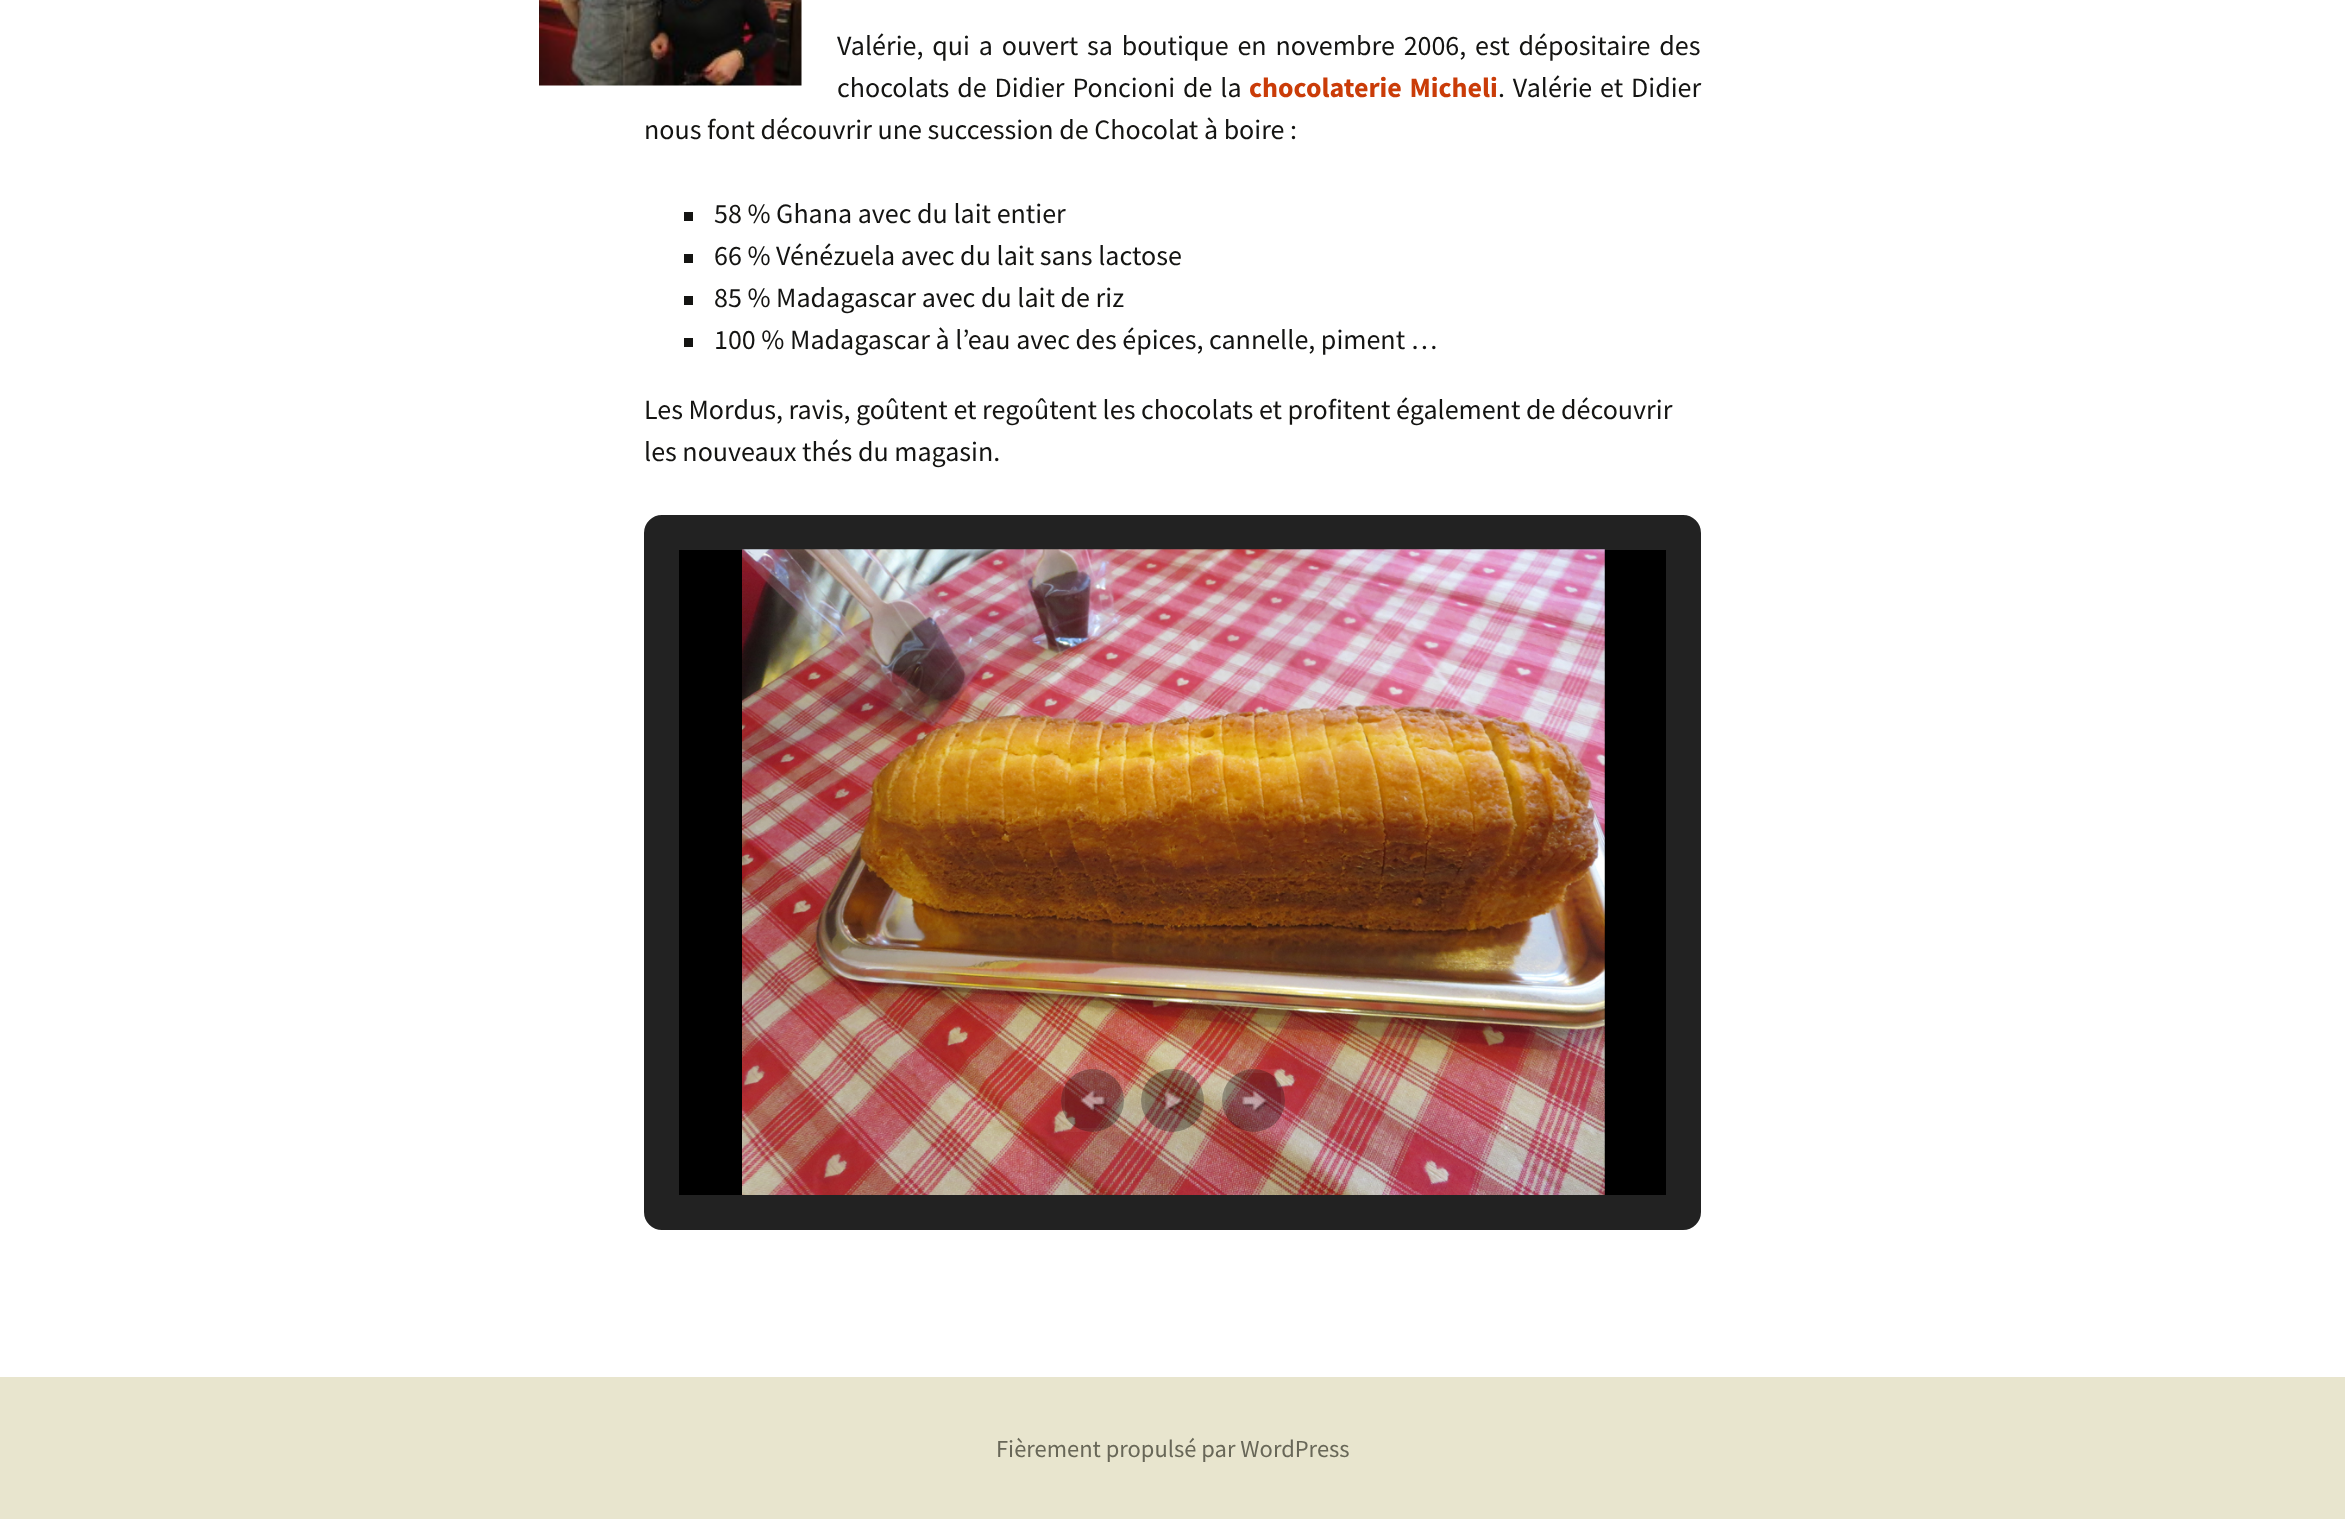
<?xml version="1.0" encoding="UTF-8"?>
<svg xmlns="http://www.w3.org/2000/svg" width="2345" height="1519">
    <rect width="100%" height="100%" fill="#FFFFFF"/>
    <image x="539" y="0" width="263" height="86" href="img_01.png"/>
    <text font-family="Source Sans Pro" font-size="28" fill="#141412">
        <tspan x="837" y="55" word-spacing="3.25">Valérie, qui a ouvert sa boutique en novembre 2006, est dépositaire des</tspan>
        <tspan x="837" y="97" word-spacing="2.25">chocolats de Didier Poncioni de la</tspan>
    </text>
    <text x="1249" y="97" word-spacing="2" font-family="Source Sans Pro" font-size="28" font-weight="700" fill="#CA3C08">chocolaterie Micheli</text>
    <text x="1498" y="97" word-spacing="2.25" font-family="Source Sans Pro" font-size="28" fill="#141412">. Valérie et Didier</text>
    <text x="644" y="139" font-family="Source Sans Pro" font-size="28" fill="#141412">nous font découvrir une succession de Chocolat à boire :</text>
    <rect x="684" y="212" width="9" height="9" fill="#141412"/>
    <text x="714" y="223" font-family="Source Sans Pro" font-size="28" fill="#141412">58 % Ghana avec du lait entier</text>
    <rect x="684" y="254" width="9" height="9" fill="#141412"/>
    <text x="714" y="265" font-family="Source Sans Pro" font-size="28" fill="#141412">66 % Vénézuela avec du lait sans lactose</text>
    <rect x="684" y="296" width="9" height="9" fill="#141412"/>
    <text x="714" y="307" font-family="Source Sans Pro" font-size="28" fill="#141412">85 % Madagascar avec du lait de riz</text>
    <rect x="684" y="338" width="9" height="9" fill="#141412"/>
    <text x="714" y="349" font-family="Source Sans Pro" font-size="28" fill="#141412">100 % Madagascar à l’eau avec des épices, cannelle, piment …</text>
    <text font-family="Source Sans Pro" font-size="28" fill="#141412">
        <tspan x="644" y="419">Les Mordus, ravis, goûtent et regoûtent les chocolats et profitent également de découvrir</tspan>
        <tspan x="644" y="461">les nouveaux thés du magasin.</tspan>
    </text>
    <rect x="661.5" y="532.5" width="1022" height="680" rx="0.5" fill="none" stroke="#222222" stroke-width="35"/>
    <rect x="679" y="550" width="987" height="645" fill="#000000"/>
    <image x="742" y="549" width="863" height="646" href="img_02.png"/>
    <circle cx="1092.5" cy="1100.5" r="31.5" fill="#000000" fill-opacity="0.3"/>
    <image x="1079" y="1090" width="29" height="23" href="img_03.png"/>
    <rect x="1063" y="1071" width="59" height="59" fill="none" stroke="#FFFFFF" stroke-opacity="0.05" stroke-width="4"/>
    <circle cx="1172.5" cy="1100.5" r="31.5" fill="#000000" fill-opacity="0.3"/>
    <image x="1165" y="1090" width="20" height="23" href="img_04.png"/>
    <rect x="1143" y="1071" width="59" height="59" fill="none" stroke="#FFFFFF" stroke-opacity="0.05" stroke-width="4"/>
    <circle cx="1253.5" cy="1100.5" r="31.5" fill="#000000" fill-opacity="0.3"/>
    <image x="1242" y="1090" width="27" height="23" href="img_05.png"/>
    <rect x="1224" y="1071" width="59" height="59" fill="none" stroke="#FFFFFF" stroke-opacity="0.05" stroke-width="4"/>
    <rect x="0" y="1377" width="2345" height="142" fill="#E8E5CE"/>
    <text x="996" y="1457" font-family="Source Sans Pro" font-size="24.5" fill="#686758">Fièrement propulsé par WordPress</text>
</svg>
